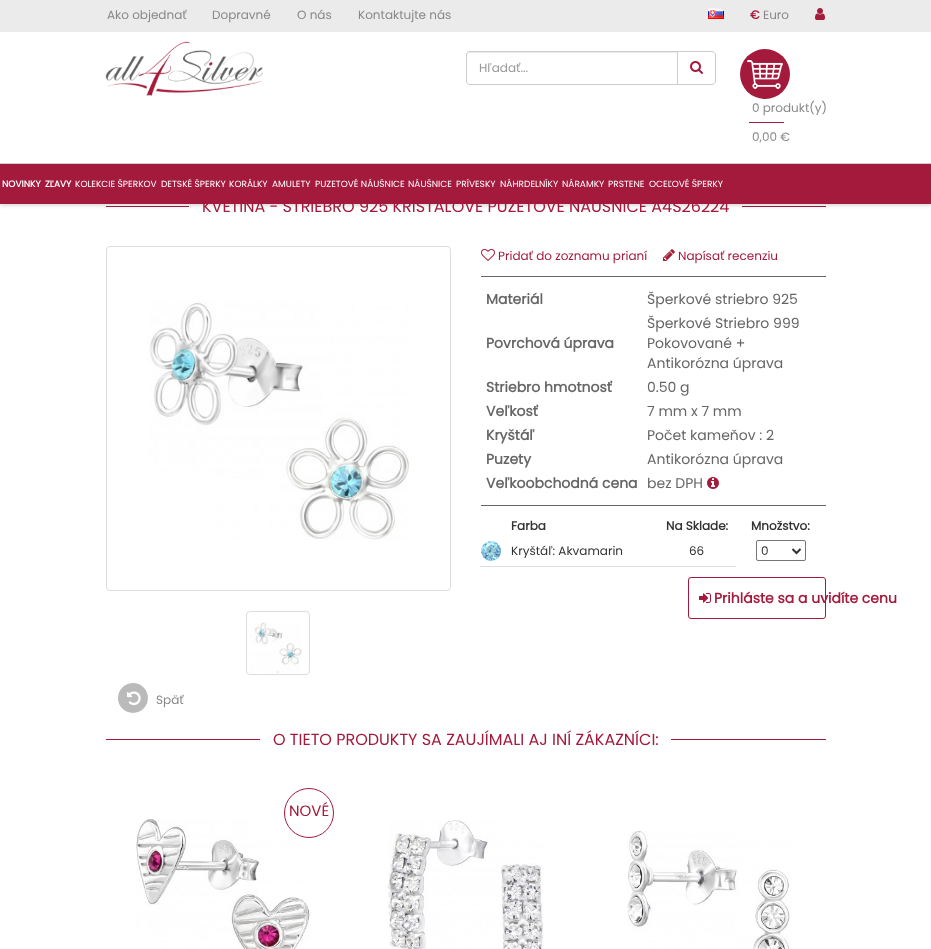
<?xml version="1.0" encoding="UTF-8"?>
<svg xmlns="http://www.w3.org/2000/svg" width="931" height="949">
    <defs>
        <filter id="blur1" x="-50%" y="-200%" width="200%" height="500%"><feGaussianBlur stdDeviation="2"/></filter>
    </defs>
    <rect width="100%" height="100%" fill="#FFFFFF"/>
    <rect x="106" y="206" width="83" height="1" fill="#A41A3C"/>
    <rect x="742" y="206" width="84" height="1" fill="#A41A3C"/>
    <rect x="0" y="1" width="931" height="204" fill="#000000" fill-opacity="0.2" filter="url(#blur1)"/>
    <rect x="0" y="32" width="931" height="131" fill="#FFFFFF"/>
    <rect x="0" y="0" width="931" height="32" fill="#ECEBEB"/>
    <text x="107" y="19" font-family="Poppins" font-size="12" fill="#888888">Ako objednať</text>
    <text x="212" y="19" font-family="Poppins" font-size="12" fill="#888888">Dopravné</text>
    <text x="297" y="19" font-family="Poppins" font-size="12" fill="#888888">O nás</text>
    <text x="358" y="19" font-family="Poppins" font-size="12" fill="#888888">Kontaktujte nás</text>
    <image x="708" y="8" width="16" height="11" href="img_01.png"/>
    <text x="750" y="19" font-family="Poppins" font-size="12" font-weight="700" fill="#A41A3C">€</text>
    <text x="763" y="19" font-family="Poppins" font-size="12" fill="#888888">Euro</text>
    <image x="815" y="8" width="10" height="12" href="img_02.png"/>
    <image x="105" y="41" width="158" height="55" href="img_03.png"/>
    <path d="M 470 53 H 677 V 52 H 470 C 468 52 467 53 467 55 V 56 C 467 54 468 53 470 53 Z" fill="#ECECEC"/>
    <path d="M 470 51.5 H 677.5 V 84.5 H 470 C 468 84.5 466.5 83 466.5 81 V 55 C 466.5 53 468 51.5 470 51.5 Z" fill="none" stroke="#CCCCCC"/>
    <text x="479" y="72" font-family="Poppins" font-size="12" fill="#999999">Hľadať...</text>
    <path d="M 677.5 51.5 H 712 C 714 51.5 715.5 53 715.5 55 V 81 C 715.5 83 714 84.5 712 84.5 H 677.5 Z" fill="#FFFFFF" stroke="#CCCCCC"/>
    <image x="690" y="61" width="13" height="13" href="img_04.png"/>
    <circle cx="765" cy="74" r="25" fill="#A41A3C"/>
    <image x="747" y="60" width="36" height="29" href="img_05.png"/>
    <text x="752" y="112" font-family="Poppins" font-size="12" fill="#888888">0 produkt(y)</text>
    <rect x="749" y="122" width="35" height="1" fill="#A41A3C"/>
    <text x="752" y="141" font-family="Poppins" font-size="12" fill="#888888">0,00 €</text>
    <rect x="0" y="164" width="931" height="40" fill="#A41A3C"/>
    <rect x="0" y="163" width="931" height="1" fill="#CCCCCC"/>
    <text x="2" y="187" font-family="Poppins" font-size="9" font-weight="700" fill="#FFFFFF">NOVINKY</text>
    <text x="45" y="187" font-family="Poppins" font-size="9" font-weight="700" fill="#FFFFFF">ZĽAVY</text>
    <text x="75" y="187" font-family="Poppins" font-size="9" fill="#FFFFFF">KOLEKCIE ŠPERKOV</text>
    <text x="161" y="187" font-family="Poppins" font-size="9" fill="#FFFFFF">DETSKÉ ŠPERKY</text>
    <text x="229" y="187" font-family="Poppins" font-size="9" fill="#FFFFFF">KORÁLKY</text>
    <text x="272" y="187" font-family="Poppins" font-size="9" fill="#FFFFFF">AMULETY</text>
    <text x="315" y="187" font-family="Poppins" font-size="9" fill="#FFFFFF">PUZETOVÉ NÁUŠNICE</text>
    <text x="408" y="187" font-family="Poppins" font-size="9" fill="#FFFFFF">NÁUŠNICE</text>
    <text x="456" y="187" font-family="Poppins" font-size="9" fill="#FFFFFF">PRÍVESKY</text>
    <text x="500" y="187" font-family="Poppins" font-size="9" fill="#FFFFFF">NÁHRDELNÍKY</text>
    <text x="562" y="187" font-family="Poppins" font-size="9" fill="#FFFFFF">NÁRAMKY</text>
    <text x="608" y="187" font-family="Poppins" font-size="9" fill="#FFFFFF">PRSTENE</text>
    <text x="649" y="187" font-family="Poppins" font-size="9" fill="#FFFFFF">OCEĽOVÉ ŠPERKY</text>
    <text x="202" y="212" font-family="Poppins" font-size="16" fill="#A41A3C">KVETINA - STRIEBRO 925 KRIŠTÁĽOVÉ PUZETOVÉ NÁUŠNICE A4S26224</text>
    <rect x="106.5" y="246.5" width="344" height="344" rx="3.5" fill="none" stroke="#DDDDDD"/>
    <image x="147" y="301" width="262" height="239" href="img_06.png"/>
    <rect x="246.5" y="611.5" width="63" height="63" rx="3.5" fill="none" stroke="#DDDDDD"/>
    <image x="250" y="622" width="52" height="51" href="img_07.png"/>
    <image x="481" y="249" width="14" height="12" href="img_08.png"/>
    <text x="498" y="260" font-family="Poppins" font-size="12" fill="#A41A3C">Pridať do zoznamu prianí</text>
    <image x="663" y="249" width="12" height="12" href="img_09.png"/>
    <text x="678" y="260" font-family="Poppins" font-size="12" fill="#A41A3C">Napísať recenziu</text>
    <rect x="481" y="276" width="345" height="1" fill="#666666"/>
    <text x="486" y="304" font-family="Poppins" font-size="14" font-weight="700" fill="#666666">Materiál</text>
    <text x="647" y="304" font-family="Poppins" font-size="14" fill="#666666">Šperkové striebro 925</text>
    <text x="486" y="348" font-family="Poppins" font-size="14" font-weight="700" fill="#666666">Povrchová úprava</text>
    <text font-family="Poppins" font-size="14" fill="#666666">
        <tspan x="647" y="328">Šperkové Striebro 999</tspan>
        <tspan x="647" y="348">Pokovované +</tspan>
        <tspan x="647" y="368">Antikorózna úprava</tspan>
    </text>
    <text x="486" y="392" font-family="Poppins" font-size="14" font-weight="700" fill="#666666">Striebro hmotnosť</text>
    <text x="647" y="392" font-family="Poppins" font-size="14" fill="#666666">0.50 g</text>
    <text x="486" y="416" font-family="Poppins" font-size="14" font-weight="700" fill="#666666">Veľkosť</text>
    <text x="647" y="416" font-family="Poppins" font-size="14" fill="#666666">7 mm x 7 mm</text>
    <text x="486" y="440" font-family="Poppins" font-size="14" font-weight="700" fill="#666666">Kryštáľ</text>
    <text x="647" y="440" font-family="Poppins" font-size="14" fill="#666666">Počet kameňov : 2</text>
    <text x="486" y="464" font-family="Poppins" font-size="14" font-weight="700" fill="#666666">Puzety</text>
    <text x="647" y="464" font-family="Poppins" font-size="14" fill="#666666">Antikorózna úprava</text>
    <text x="486" y="488" font-family="Poppins" font-size="14" font-weight="700" fill="#666666">Veľkoobchodná cena</text>
    <text x="647" y="488" font-family="Poppins" font-size="14" fill="#666666">bez DPH</text>
    <image x="707" y="477" width="12" height="12" href="img_10.png"/>
    <rect x="481" y="505" width="345" height="1" fill="#666666"/>
    <text x="511" y="530" font-family="Poppins" font-size="12" font-weight="700" fill="#333333">Farba</text>
    <text x="666" y="530" font-family="Poppins" font-size="12" font-weight="700" fill="#333333">Na Sklade:</text>
    <text x="751" y="530" font-family="Poppins" font-size="12" font-weight="700" fill="#333333">Množstvo:</text>
    <image x="481" y="541" width="20" height="20" href="img_11.png"/>
    <text x="511" y="555" font-family="Poppins" font-size="12" fill="#333333">Kryštáľ: Akvamarin</text>
    <rect x="480" y="566" width="256" height="1" fill="#DDDDDD"/>
    <text x="689" y="555" font-family="Poppins" font-size="12" fill="#333333">66</text>
    <rect x="756.5" y="540.5" width="49" height="20" rx="1.5" fill="none" stroke="#767676"/>
    <path d="M 792.5 549 L 796.5 553 L 800.5 549" fill="none" stroke="#333333" stroke-width="2"/>
    <text x="761" y="555" font-family="Poppins" font-size="12" fill="#333333">0</text>
    <rect x="688.5" y="577.5" width="137" height="41" rx="2.5" fill="none" stroke="#A41A3C"/>
    <image x="699" y="593" width="12" height="10" href="img_12.png"/>
    <text x="714" y="603" font-family="Poppins" font-size="14" font-weight="700" fill="#A41A3C">Prihláste sa a uvidíte cenu</text>
    <circle cx="133" cy="698" r="15" fill="#BABABA"/>
    <image x="127" y="691" width="14" height="15" href="img_13.png"/>
    <text x="156" y="704" font-family="Poppins" font-size="12" fill="#888888">Späť</text>
    <rect x="106" y="739" width="154" height="1" fill="#A41A3C"/>
    <text x="273" y="745" font-family="Poppins" font-size="16" fill="#A41A3C">O TIETO PRODUKTY SA ZAUJÍMALI AJ INÍ ZÁKAZNÍCI:</text>
    <rect x="671" y="739" width="155" height="1" fill="#A41A3C"/>
    <image x="136" y="819" width="174" height="130" href="img_14.png"/>
    <circle cx="309" cy="813" r="24.5" fill="none" stroke="#A41A3C"/>
    <text x="289" y="816" font-family="Poppins" font-size="15" fill="#A41A3C">NOVÉ</text>
    <image x="387" y="820" width="157" height="129" href="img_15.png"/>
    <image x="627" y="831" width="165" height="118" href="img_16.png"/>
</svg>
